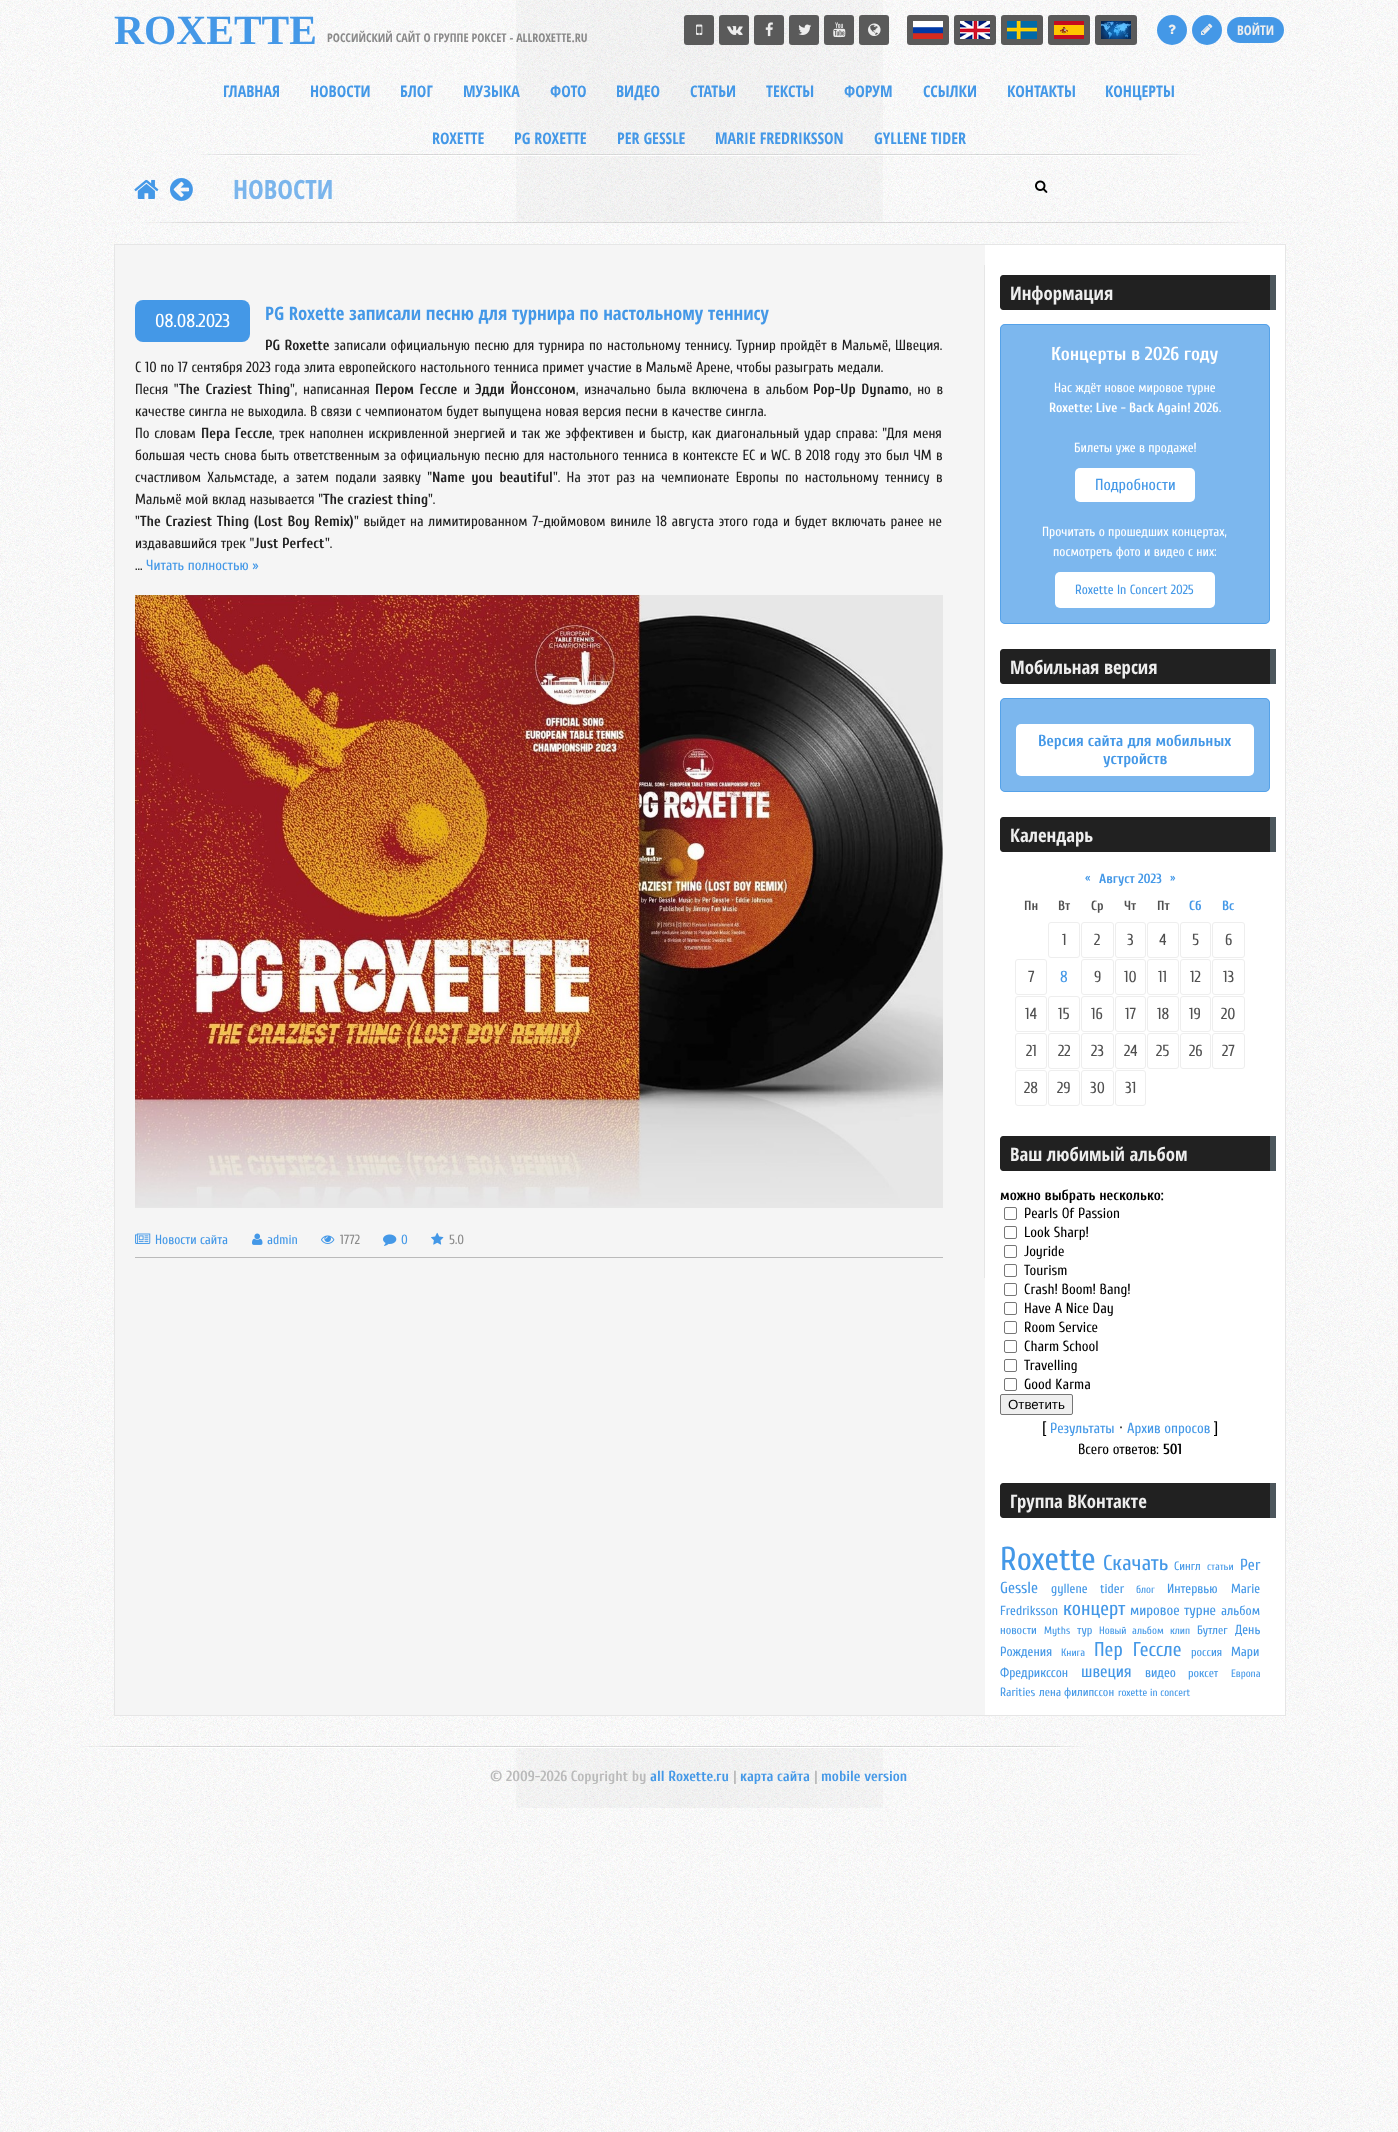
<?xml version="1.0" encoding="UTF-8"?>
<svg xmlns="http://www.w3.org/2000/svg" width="1398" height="2132">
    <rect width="100%" height="100%" fill="#FFFFFF"/>
    <image x="0" y="0" width="1398" height="2132" href="img_01.png"/>
    <image x="516" y="0" width="367" height="60" href="img_02.png"/>
    <text x="114" y="44" font-family="Liberation Serif" font-size="41.5" font-weight="700" fill="#4498E7">ROXETTE</text>
    <text x="327" y="42" font-family="Open Sans Condensed" font-size="12" font-weight="700" fill="#8A8A8A">РОССИЙСКИЙ САЙТ О ГРУППЕ РОКСЕТ - ALLROXETTE.RU</text>
    <rect x="684" y="15" width="30" height="30" rx="3" fill="#5A5A5A"/>
    <image x="696" y="24" width="7" height="11" href="img_03.png"/>
    <rect x="719" y="15" width="30" height="30" rx="3" fill="#5A5A5A"/>
    <image x="727" y="26" width="16" height="9" href="img_04.png"/>
    <rect x="754" y="15" width="30" height="30" rx="3" fill="#5A5A5A"/>
    <image x="765" y="22" width="8" height="15" href="img_05.png"/>
    <rect x="789" y="15" width="30" height="30" rx="3" fill="#5A5A5A"/>
    <image x="798" y="24" width="14" height="11" href="img_06.png"/>
    <rect x="824" y="15" width="30" height="30" rx="3" fill="#5A5A5A"/>
    <image x="833" y="22" width="13" height="16" href="img_07.png"/>
    <rect x="859" y="15" width="30" height="30" rx="3" fill="#5A5A5A"/>
    <image x="868" y="23" width="13" height="13" href="img_08.png"/>
    <rect x="907" y="15" width="42" height="30" rx="3" fill="#5A5A5A"/>
    <image x="913" y="21" width="30" height="18" href="img_09.png"/>
    <rect x="954" y="15" width="42" height="30" rx="3" fill="#5A5A5A"/>
    <image x="960" y="21" width="30" height="18" href="img_10.png"/>
    <rect x="1001" y="15" width="42" height="30" rx="3" fill="#5A5A5A"/>
    <image x="1007" y="21" width="30" height="18" href="img_11.png"/>
    <rect x="1048" y="15" width="42" height="30" rx="3" fill="#5A5A5A"/>
    <image x="1054" y="21" width="30" height="18" href="img_12.png"/>
    <rect x="1095" y="15" width="42" height="30" rx="3" fill="#5A5A5A"/>
    <image x="1101" y="21" width="30" height="18" href="img_13.png"/>
    <circle cx="1172" cy="30" r="15" fill="#4498E7"/>
    <image x="1168" y="24" width="8" height="10" href="img_14.png"/>
    <circle cx="1207" cy="30" r="15" fill="#4498E7"/>
    <image x="1201" y="23" width="12" height="12" href="img_15.png"/>
    <rect x="1227" y="17" width="57" height="26" rx="13" fill="#4498E7"/>
    <text x="1237" y="35" font-family="Open Sans Condensed" font-size="13.3" font-weight="700" fill="#EEEEEE">ВОЙТИ</text>
    <image x="516" y="60" width="367" height="94" href="img_16.png"/>
    <text x="223" y="97" font-family="Open Sans Condensed" font-size="16" font-weight="700" fill="#4498E7">ГЛАВНАЯ</text>
    <text x="310" y="97" font-family="Open Sans Condensed" font-size="16" font-weight="700" fill="#4498E7">НОВОСТИ</text>
    <text x="400" y="97" font-family="Open Sans Condensed" font-size="16" font-weight="700" fill="#4498E7">БЛОГ</text>
    <text x="463" y="97" font-family="Open Sans Condensed" font-size="16" font-weight="700" fill="#4498E7">МУЗЫКА</text>
    <text x="550" y="97" font-family="Open Sans Condensed" font-size="16" font-weight="700" fill="#4498E7">ФОТО</text>
    <text x="616" y="97" font-family="Open Sans Condensed" font-size="16" font-weight="700" fill="#4498E7">ВИДЕО</text>
    <text x="690" y="97" font-family="Open Sans Condensed" font-size="16" font-weight="700" fill="#4498E7">СТАТЬИ</text>
    <text x="766" y="97" font-family="Open Sans Condensed" font-size="16" font-weight="700" fill="#4498E7">ТЕКСТЫ</text>
    <text x="844" y="97" font-family="Open Sans Condensed" font-size="16" font-weight="700" fill="#4498E7">ФОРУМ</text>
    <text x="923" y="97" font-family="Open Sans Condensed" font-size="16" font-weight="700" fill="#4498E7">ССЫЛКИ</text>
    <text x="1007" y="97" font-family="Open Sans Condensed" font-size="16" font-weight="700" fill="#4498E7">КОНТАКТЫ</text>
    <text x="1105" y="97" font-family="Open Sans Condensed" font-size="16" font-weight="700" fill="#4498E7">КОНЦЕРТЫ</text>
    <text x="432" y="144" font-family="Open Sans Condensed" font-size="16" font-weight="700" fill="#4498E7">ROXETTE</text>
    <text x="514" y="144" font-family="Open Sans Condensed" font-size="16" font-weight="700" fill="#4498E7">PG ROXETTE</text>
    <text x="617" y="144" font-family="Open Sans Condensed" font-size="16" font-weight="700" fill="#4498E7">PER GESSLE</text>
    <text x="715" y="144" font-family="Open Sans Condensed" font-size="16" font-weight="700" fill="#4498E7">MARIE FREDRIKSSON</text>
    <text x="874" y="144" font-family="Open Sans Condensed" font-size="16" font-weight="700" fill="#4498E7">GYLLENE TIDER</text>
    <image x="196" y="154" width="1004" height="2" href="img_17.png"/>
    <image x="516" y="156" width="367" height="66" href="img_18.png"/>
    <image x="134" y="179" width="25" height="20" href="img_19.png"/>
    <image x="170" y="178" width="23" height="23" href="img_20.png"/>
    <text x="233" y="199" font-family="Open Sans Condensed" font-size="26.5" font-weight="700" fill="#7AB5EC">НОВОСТИ</text>
    <image x="1035" y="180" width="13" height="13" href="img_21.png"/>
    <image x="145" y="222" width="1105" height="2" href="img_22.png"/>
    <rect x="115" y="245" width="870" height="1470" fill="#F5F5F5"/>
    <rect x="114.5" y="244.5" width="1171" height="1471" fill="none" stroke="#E6E6E6"/>
    <rect x="984" y="265" width="1" height="1013" fill="#E6E6E6"/>
    <rect x="135" y="1257" width="808" height="1" fill="#BABABA"/>
    <rect x="135" y="300" width="115" height="42" rx="8" fill="#4498E7"/>
    <text x="155" y="327" font-family="Cuprum" font-size="18.7" fill="#FFFFFF">08.08.2023</text>
    <text x="265" y="320" font-family="Open Sans Condensed" font-size="18.7" font-weight="700" fill="#4498E7">PG Roxette записали песню для турнира по настольному теннису</text>
    <text x="265" y="350" word-spacing="0.6" font-family="Cuprum" font-size="14.67" font-weight="700" fill="#212121">PG Roxette</text>
    <text x="334" y="350" word-spacing="0.6" font-family="Cuprum" font-size="14.67" fill="#212121">записали официальную песню для турнира по настольному теннису. Турнир пройдёт в Мальмё, Швеция.</text>
    <text font-family="Cuprum" font-size="14.67" fill="#212121">
        <tspan x="135" y="372">С 10 по 17 сентября 2023 года элита европейского настольного тенниса примет участие в Мальмё Арене, чтобы разыграть медали.</tspan>
        <tspan x="135" y="394" word-spacing="2">Песня "</tspan>
    </text>
    <text x="179" y="394" word-spacing="2" font-family="Cuprum" font-size="14.67" font-weight="700" fill="#212121">The Craziest Thing</text>
    <text x="290" y="394" word-spacing="2" font-family="Cuprum" font-size="14.67" fill="#212121">", написанная</text>
    <text x="375" y="394" word-spacing="2" font-family="Cuprum" font-size="14.67" font-weight="700" fill="#212121">Пером Гессле</text>
    <text x="463" y="394" font-family="Cuprum" font-size="14.67" fill="#212121">и</text>
    <text x="475" y="394" word-spacing="2" font-family="Cuprum" font-size="14.67" font-weight="700" fill="#212121">Эдди Йонссоном</text>
    <text x="576" y="394" word-spacing="2" font-family="Cuprum" font-size="14.67" fill="#212121">, изначально была включена в альбом</text>
    <text x="813" y="394" word-spacing="2" font-family="Cuprum" font-size="14.67" font-weight="700" fill="#212121">Pop-Up Dynamo</text>
    <text x="909" y="394" word-spacing="2" font-family="Cuprum" font-size="14.67" fill="#212121">, но в</text>
    <text font-family="Cuprum" font-size="14.67" fill="#212121">
        <tspan x="135" y="416">качестве сингла не выходила. В связи с чемпионатом будет выпущена новая версия песни в качестве сингла.</tspan>
        <tspan x="135" y="438" word-spacing="1">По словам</tspan>
    </text>
    <text x="201" y="438" word-spacing="1" font-family="Cuprum" font-size="14.67" font-weight="700" fill="#212121">Пера Гессле</text>
    <text x="272" y="438" word-spacing="1.1" font-family="Cuprum" font-size="14.67" fill="#212121">, трек наполнен искривленной энергией и так же эффективен и быстр, как диагональный удар справа: "Для меня</text>
    <text font-family="Cuprum" font-size="14.67" fill="#212121">
        <tspan x="135" y="460" word-spacing="0.6">большая честь снова быть ответственным за официальную песню для настольного тенниса в контексте EC и WC. В 2018 году это был ЧМ в</tspan>
        <tspan x="135" y="482" word-spacing="2.6">счастливом Хальмстаде, а затем подали заявку "</tspan>
    </text>
    <text x="432" y="482" word-spacing="2.6" font-family="Cuprum" font-size="14.67" font-weight="700" fill="#212121">Name you beautiful</text>
    <text x="553" y="482" word-spacing="2.6" font-family="Cuprum" font-size="14.67" fill="#212121">". На этот раз на чемпионате Европы по настольному теннису в</text>
    <text x="135" y="504" font-family="Cuprum" font-size="14.67" fill="#212121">Мальмё мой вклад называется "</text>
    <text x="323" y="504" font-family="Cuprum" font-size="14.67" font-weight="700" fill="#212121">The craziest thing</text>
    <text x="428" y="504" font-family="Cuprum" font-size="14.67" fill="#212121">".</text>
    <text x="135" y="526" font-family="Cuprum" font-size="14.67" fill="#212121">"</text>
    <text x="140" y="526" word-spacing="1" font-family="Cuprum" font-size="14.67" font-weight="700" fill="#212121">The Craziest Thing (Lost Boy Remix)</text>
    <text x="354" y="526" word-spacing="1" font-family="Cuprum" font-size="14.67" fill="#212121">" выйдет на лимитированном 7-дюймовом виниле 18 августа этого года и будет включать ранее не</text>
    <text x="135" y="548" font-family="Cuprum" font-size="14.67" fill="#212121">издававшийся трек "</text>
    <text x="254" y="548" font-family="Cuprum" font-size="14.67" font-weight="700" fill="#212121">Just Perfect</text>
    <text x="325" y="548" font-family="Cuprum" font-size="14.67" fill="#212121">".</text>
    <text x="135" y="570" font-family="Cuprum" font-size="14.67" fill="#212121">...</text>
    <text x="146" y="570" font-family="Cuprum" font-size="14.67" fill="#4498E7">Читать полностью »</text>
    <image x="135" y="595" width="808" height="613" href="img_23.png"/>
    <image x="135" y="1233" width="16" height="11" href="img_24.png"/>
    <text x="155" y="1244" font-family="Cuprum" font-size="13.3" fill="#4498E7">Новости сайта</text>
    <image x="252" y="1233" width="11" height="12" href="img_25.png"/>
    <text x="267" y="1244" font-family="Cuprum" font-size="13.3" fill="#4498E7">admin</text>
    <image x="321" y="1235" width="14" height="9" href="img_26.png"/>
    <text x="340" y="1244" font-family="Cuprum" font-size="13.3" fill="#8A8A8A">1772</text>
    <image x="383" y="1234" width="14" height="12" href="img_27.png"/>
    <text x="401" y="1244" font-family="Cuprum" font-size="13.3" fill="#4498E7">0</text>
    <image x="431" y="1232" width="13" height="13" href="img_28.png"/>
    <text x="449" y="1244" font-family="Cuprum" font-size="13.3" fill="#8A8A8A">5.0</text>
    <rect x="985" y="245" width="300" height="1470" fill="#FFFFFF"/>
    <path d="M 1003 275 H 1276 V 310 H 1003 C 1001.5 310 1000 308.5 1000 307 V 278 C 1000 276.5 1001.5 275 1003 275 Z" fill="#212121"/>
    <rect x="1270" y="275" width="6" height="35" fill="#4C565C"/>
    <text x="1010" y="300" font-family="Open Sans Condensed" font-size="18.7" font-weight="700" fill="#EEEEEE">Информация</text>
    <rect x="1000" y="324" width="270" height="300" rx="5" fill="#7CB7EE"/>
    <rect x="1000.5" y="324.5" width="269" height="299" rx="4.5" fill="none" stroke="#4498E7" stroke-opacity="0.7"/>
    <text x="1051" y="360" font-family="Cuprum" font-size="18.7" font-weight="700" fill="#FFFFFF">Концерты в 2026 году</text>
    <text x="1054" y="392" font-family="Cuprum" font-size="13.3" fill="#FFFFFF">Нас ждёт новое мировое турне</text>
    <text x="1049" y="412" font-family="Cuprum" font-size="13.3" font-weight="700" fill="#FFFFFF">Roxette: Live - Back Again! 2026</text>
    <text x="1219" y="412" font-family="Cuprum" font-size="13.3" fill="#FFFFFF">.</text>
    <text x="1074" y="452" font-family="Cuprum" font-size="13.3" fill="#FFFFFF">Билеты уже в продаже!</text>
    <rect x="1075" y="468" width="120" height="34" rx="5" fill="#FFFFFF"/>
    <text x="1095" y="490" font-family="Cuprum" font-size="16" fill="#4498E7">Подробности</text>
    <text x="1042" y="536" font-family="Cuprum" font-size="13.3" fill="#FFFFFF">Прочитать о прошедших концертах,</text>
    <text x="1053" y="556" font-family="Cuprum" font-size="13.3" fill="#FFFFFF">посмотреть фото и видео с них:</text>
    <rect x="1055" y="572" width="160" height="36" rx="5" fill="#FFFFFF"/>
    <text x="1075" y="594" font-family="Cuprum" font-size="13.3" fill="#4498E7">Roxette In Concert 2025</text>
    <path d="M 1003 649 H 1276 V 684 H 1003 C 1001.5 684 1000 682.5 1000 681 V 652 C 1000 650.5 1001.5 649 1003 649 Z" fill="#212121"/>
    <rect x="1270" y="649" width="6" height="35" fill="#4C565C"/>
    <text x="1010" y="674" font-family="Open Sans Condensed" font-size="18.7" font-weight="700" fill="#EEEEEE">Мобильная версия</text>
    <rect x="1000" y="698" width="270" height="94" rx="5" fill="#7CB7EE"/>
    <rect x="1000.5" y="698.5" width="269" height="93" rx="4.5" fill="none" stroke="#4498E7" stroke-opacity="0.7"/>
    <rect x="1016" y="724" width="238" height="52" rx="5" fill="#FFFFFF"/>
    <text x="1038" y="746" font-family="Cuprum" font-size="16" font-weight="700" fill="#4498E7">Версия сайта для мобильных</text>
    <text x="1103" y="764" font-family="Cuprum" font-size="16" font-weight="700" fill="#4498E7">устройств</text>
    <path d="M 1003 817 H 1276 V 852 H 1003 C 1001.5 852 1000 850.5 1000 849 V 820 C 1000 818.5 1001.5 817 1003 817 Z" fill="#212121"/>
    <rect x="1270" y="817" width="6" height="35" fill="#4C565C"/>
    <text x="1010" y="842" font-family="Open Sans Condensed" font-size="18.7" font-weight="700" fill="#EEEEEE">Календарь</text>
    <text x="1085" y="881" font-family="Cuprum" font-size="10.75" font-weight="700" fill="#4498E7">«</text>
    <text x="1099" y="883" font-family="Cuprum" font-size="13.3" font-weight="700" fill="#4498E7">Август 2023</text>
    <text x="1170" y="881" font-family="Cuprum" font-size="10.75" font-weight="700" fill="#4498E7">»</text>
    <text x="1024" y="910" font-family="Cuprum" font-size="13.3" font-weight="700" fill="#505050">Пн</text>
    <text x="1058" y="910" font-family="Cuprum" font-size="13.3" font-weight="700" fill="#505050">Вт</text>
    <text x="1091" y="910" font-family="Cuprum" font-size="13.3" font-weight="700" fill="#505050">Ср</text>
    <text x="1124" y="910" font-family="Cuprum" font-size="13.3" font-weight="700" fill="#505050">Чт</text>
    <text x="1157" y="910" font-family="Cuprum" font-size="13.3" font-weight="700" fill="#505050">Пт</text>
    <text x="1189" y="910" font-family="Cuprum" font-size="13.3" font-weight="700" fill="#4498E7">Сб</text>
    <text x="1222" y="910" font-family="Cuprum" font-size="13.3" font-weight="700" fill="#4498E7">Вс</text>
    <rect x="1048.5" y="922.5" width="31" height="35" rx="2.5" fill="none" stroke="#EEEEEE"/>
    <text x="1062" y="945" font-family="Cuprum" font-size="16" fill="#505050">1</text>
    <rect x="1081.5" y="922.5" width="32" height="35" rx="2.5" fill="none" stroke="#EEEEEE"/>
    <text x="1094" y="945" font-family="Cuprum" font-size="16" fill="#505050">2</text>
    <rect x="1115.5" y="922.5" width="30" height="35" rx="2.5" fill="none" stroke="#EEEEEE"/>
    <text x="1127" y="945" font-family="Cuprum" font-size="16" fill="#505050">3</text>
    <rect x="1147.5" y="922.5" width="31" height="35" rx="2.5" fill="none" stroke="#EEEEEE"/>
    <text x="1159" y="945" font-family="Cuprum" font-size="16" fill="#505050">4</text>
    <rect x="1180.5" y="922.5" width="30" height="35" rx="2.5" fill="none" stroke="#EEEEEE"/>
    <text x="1192" y="945" font-family="Cuprum" font-size="16" fill="#505050">5</text>
    <rect x="1212.5" y="922.5" width="32" height="35" rx="2.5" fill="none" stroke="#EEEEEE"/>
    <text x="1225" y="945" font-family="Cuprum" font-size="16" fill="#505050">6</text>
    <rect x="1015.5" y="959.5" width="31" height="35" rx="2.5" fill="none" stroke="#EEEEEE"/>
    <text x="1028" y="982" font-family="Cuprum" font-size="16" fill="#505050">7</text>
    <text x="1060" y="982" font-family="Cuprum" font-size="16" fill="#4498E7">8</text>
    <rect x="1081.5" y="959.5" width="32" height="35" rx="2.5" fill="none" stroke="#EEEEEE"/>
    <text x="1094" y="982" font-family="Cuprum" font-size="16" fill="#505050">9</text>
    <rect x="1115.5" y="959.5" width="30" height="35" rx="2.5" fill="none" stroke="#EEEEEE"/>
    <text x="1124" y="982" font-family="Cuprum" font-size="16" fill="#505050">10</text>
    <rect x="1147.5" y="959.5" width="31" height="35" rx="2.5" fill="none" stroke="#EEEEEE"/>
    <text x="1158" y="982" font-family="Cuprum" font-size="16" fill="#505050">11</text>
    <rect x="1180.5" y="959.5" width="30" height="35" rx="2.5" fill="none" stroke="#EEEEEE"/>
    <text x="1190" y="982" font-family="Cuprum" font-size="16" fill="#505050">12</text>
    <rect x="1212.5" y="959.5" width="32" height="35" rx="2.5" fill="none" stroke="#EEEEEE"/>
    <text x="1223" y="982" font-family="Cuprum" font-size="16" fill="#505050">13</text>
    <rect x="1015.5" y="996.5" width="31" height="35" rx="2.5" fill="none" stroke="#EEEEEE"/>
    <text x="1025" y="1019" font-family="Cuprum" font-size="16" fill="#505050">14</text>
    <rect x="1048.5" y="996.5" width="31" height="35" rx="2.5" fill="none" stroke="#EEEEEE"/>
    <text x="1058" y="1019" font-family="Cuprum" font-size="16" fill="#505050">15</text>
    <rect x="1081.5" y="996.5" width="32" height="35" rx="2.5" fill="none" stroke="#EEEEEE"/>
    <text x="1091" y="1019" font-family="Cuprum" font-size="16" fill="#505050">16</text>
    <rect x="1115.5" y="996.5" width="30" height="35" rx="2.5" fill="none" stroke="#EEEEEE"/>
    <text x="1125" y="1019" font-family="Cuprum" font-size="16" fill="#505050">17</text>
    <rect x="1147.5" y="996.5" width="31" height="35" rx="2.5" fill="none" stroke="#EEEEEE"/>
    <text x="1157" y="1019" font-family="Cuprum" font-size="16" fill="#505050">18</text>
    <rect x="1180.5" y="996.5" width="30" height="35" rx="2.5" fill="none" stroke="#EEEEEE"/>
    <text x="1189" y="1019" font-family="Cuprum" font-size="16" fill="#505050">19</text>
    <rect x="1212.5" y="996.5" width="32" height="35" rx="2.5" fill="none" stroke="#EEEEEE"/>
    <text x="1221" y="1019" font-family="Cuprum" font-size="16" fill="#505050">20</text>
    <rect x="1015.5" y="1033.5" width="31" height="35" rx="2.5" fill="none" stroke="#EEEEEE"/>
    <text x="1026" y="1056" font-family="Cuprum" font-size="16" fill="#505050">21</text>
    <rect x="1048.5" y="1033.5" width="31" height="35" rx="2.5" fill="none" stroke="#EEEEEE"/>
    <text x="1058" y="1056" font-family="Cuprum" font-size="16" fill="#505050">22</text>
    <rect x="1081.5" y="1033.5" width="32" height="35" rx="2.5" fill="none" stroke="#EEEEEE"/>
    <text x="1091" y="1056" font-family="Cuprum" font-size="16" fill="#505050">23</text>
    <rect x="1115.5" y="1033.5" width="30" height="35" rx="2.5" fill="none" stroke="#EEEEEE"/>
    <text x="1124" y="1056" font-family="Cuprum" font-size="16" fill="#505050">24</text>
    <rect x="1147.5" y="1033.5" width="31" height="35" rx="2.5" fill="none" stroke="#EEEEEE"/>
    <text x="1156" y="1056" font-family="Cuprum" font-size="16" fill="#505050">25</text>
    <rect x="1180.5" y="1033.5" width="30" height="35" rx="2.5" fill="none" stroke="#EEEEEE"/>
    <text x="1189" y="1056" font-family="Cuprum" font-size="16" fill="#505050">26</text>
    <rect x="1212.5" y="1033.5" width="32" height="35" rx="2.5" fill="none" stroke="#EEEEEE"/>
    <text x="1222" y="1056" font-family="Cuprum" font-size="16" fill="#505050">27</text>
    <rect x="1015.5" y="1070.5" width="31" height="35" rx="2.5" fill="none" stroke="#EEEEEE"/>
    <text x="1024" y="1093" font-family="Cuprum" font-size="16" fill="#505050">28</text>
    <rect x="1048.5" y="1070.5" width="31" height="35" rx="2.5" fill="none" stroke="#EEEEEE"/>
    <text x="1057" y="1093" font-family="Cuprum" font-size="16" fill="#505050">29</text>
    <rect x="1081.5" y="1070.5" width="32" height="35" rx="2.5" fill="none" stroke="#EEEEEE"/>
    <text x="1090" y="1093" font-family="Cuprum" font-size="16" fill="#505050">30</text>
    <rect x="1115.5" y="1070.5" width="30" height="35" rx="2.5" fill="none" stroke="#EEEEEE"/>
    <text x="1125" y="1093" font-family="Cuprum" font-size="16" fill="#505050">31</text>
    <path d="M 1003 1136 H 1276 V 1171 H 1003 C 1001.5 1171 1000 1169.5 1000 1168 V 1139 C 1000 1137.5 1001.5 1136 1003 1136 Z" fill="#212121"/>
    <rect x="1270" y="1136" width="6" height="35" fill="#4C565C"/>
    <text x="1010" y="1161" font-family="Open Sans Condensed" font-size="18.7" font-weight="700" fill="#EEEEEE">Ваш любимый альбом</text>
    <text x="1000" y="1200" font-family="Cuprum" font-size="14.67" font-weight="700" fill="#000000">можно выбрать несколько:</text>
    <rect x="1004.5" y="1207.5" width="12" height="12" rx="1.5" fill="none" stroke="#767676"/>
    <text x="1024" y="1218" font-family="Cuprum" font-size="14.67" fill="#000000">Pearls Of Passion</text>
    <rect x="1004.5" y="1226.5" width="12" height="12" rx="1.5" fill="none" stroke="#767676"/>
    <text x="1024" y="1237" font-family="Cuprum" font-size="14.67" fill="#000000">Look Sharp!</text>
    <rect x="1004.5" y="1245.5" width="12" height="12" rx="1.5" fill="none" stroke="#767676"/>
    <text x="1024" y="1256" font-family="Cuprum" font-size="14.67" fill="#000000">Joyride</text>
    <rect x="1004.5" y="1264.5" width="12" height="12" rx="1.5" fill="none" stroke="#767676"/>
    <text x="1024" y="1275" font-family="Cuprum" font-size="14.67" fill="#000000">Tourism</text>
    <rect x="1004.5" y="1283.5" width="12" height="12" rx="1.5" fill="none" stroke="#767676"/>
    <text x="1024" y="1294" font-family="Cuprum" font-size="14.67" fill="#000000">Crash! Boom! Bang!</text>
    <rect x="1004.5" y="1302.5" width="12" height="12" rx="1.5" fill="none" stroke="#767676"/>
    <text x="1024" y="1313" font-family="Cuprum" font-size="14.67" fill="#000000">Have A Nice Day</text>
    <rect x="1004.5" y="1321.5" width="12" height="12" rx="1.5" fill="none" stroke="#767676"/>
    <text x="1024" y="1332" font-family="Cuprum" font-size="14.67" fill="#000000">Room Service</text>
    <rect x="1004.5" y="1340.5" width="12" height="12" rx="1.5" fill="none" stroke="#767676"/>
    <text x="1024" y="1351" font-family="Cuprum" font-size="14.67" fill="#000000">Charm School</text>
    <rect x="1004.5" y="1359.5" width="12" height="12" rx="1.5" fill="none" stroke="#767676"/>
    <text x="1024" y="1370" font-family="Cuprum" font-size="14.67" fill="#000000">Travelling</text>
    <rect x="1004.5" y="1378.5" width="12" height="12" rx="1.5" fill="none" stroke="#767676"/>
    <text x="1024" y="1389" font-family="Cuprum" font-size="14.67" fill="#000000">Good Karma</text>
    <rect x="1000.5" y="1394.5" width="72" height="20" rx="1.5" fill="#EFEFEF" stroke="#767676"/>
    <text x="1008" y="1409" font-family="Liberation Sans" font-size="13.3" fill="#000000">Ответить</text>
    <text x="1042" y="1433" font-family="Cuprum" font-size="16" fill="#000000">[</text>
    <text x="1050" y="1433" font-family="Cuprum" font-size="14.67" fill="#4498E7">Результаты</text>
    <text x="1119" y="1433" font-family="Cuprum" font-size="16" fill="#000000">·</text>
    <text x="1127" y="1433" font-family="Cuprum" font-size="14.67" fill="#4498E7">Архив опросов</text>
    <text x="1214" y="1433" font-family="Cuprum" font-size="16" fill="#000000">]</text>
    <text x="1078" y="1454" font-family="Cuprum" font-size="14.67" fill="#000000">Всего ответов:</text>
    <text x="1163" y="1454" font-family="Cuprum" font-size="14.67" font-weight="700" fill="#000000">501</text>
    <path d="M 1003 1483 H 1276 V 1518 H 1003 C 1001.5 1518 1000 1516.5 1000 1515 V 1486 C 1000 1484.5 1001.5 1483 1003 1483 Z" fill="#212121"/>
    <rect x="1270" y="1483" width="6" height="35" fill="#4C565C"/>
    <text x="1010" y="1508" font-family="Open Sans Condensed" font-size="18.7" font-weight="700" fill="#EEEEEE">Группа ВКонтакте</text>
    <text x="1000" y="1570" font-family="Cuprum" font-size="33" fill="#4498E7">Roxette</text>
    <text x="1103" y="1570" font-family="Cuprum" font-size="21.5" fill="#4498E7">Скачать</text>
    <text x="1174" y="1570" font-family="Cuprum" font-size="12" fill="#4498E7">Сингл</text>
    <text x="1207" y="1570" font-family="Cuprum" font-size="10.75" fill="#4498E7">статьи</text>
    <text x="1240" y="1570" font-family="Cuprum" font-size="16" fill="#4498E7">Per</text>
    <text x="1000" y="1593" font-family="Cuprum" font-size="16" fill="#4498E7">Gessle</text>
    <text x="1051" y="1593" word-spacing="9" font-family="Cuprum" font-size="13.3" fill="#4498E7">gyllene tider</text>
    <text x="1136" y="1593" font-family="Cuprum" font-size="10.75" fill="#4498E7">блог</text>
    <text x="1167" y="1593" font-family="Cuprum" font-size="13.3" fill="#4498E7">Интервью</text>
    <text x="1231" y="1593" font-family="Cuprum" font-size="13.3" fill="#4498E7">Marie</text>
    <text x="1000" y="1615" font-family="Cuprum" font-size="13.3" fill="#4498E7">Fredriksson</text>
    <text x="1063" y="1615" font-family="Cuprum" font-size="20" fill="#4498E7">концерт</text>
    <text x="1130" y="1615" word-spacing="0.6" font-family="Cuprum" font-size="14.67" fill="#4498E7">мировое турне</text>
    <text x="1221" y="1615" font-family="Cuprum" font-size="13.3" fill="#4498E7">альбом</text>
    <text x="1000" y="1634" font-family="Cuprum" font-size="12" fill="#4498E7">новости</text>
    <text x="1044" y="1634" font-family="Cuprum" font-size="10.75" fill="#4498E7">Myths</text>
    <text x="1077" y="1634" font-family="Cuprum" font-size="12" fill="#4498E7">тур</text>
    <text x="1099" y="1634" word-spacing="3" font-family="Cuprum" font-size="10.75" fill="#4498E7">Новый альбом</text>
    <text x="1170" y="1634" font-family="Cuprum" font-size="10.75" fill="#4498E7">клип</text>
    <text x="1197" y="1634" font-family="Cuprum" font-size="12" fill="#4498E7">Бутлег</text>
    <text x="1235" y="1634" font-family="Cuprum" font-size="13.3" fill="#4498E7">День</text>
    <text x="1000" y="1656" font-family="Cuprum" font-size="13.3" fill="#4498E7">Рождения</text>
    <text x="1061" y="1656" font-family="Cuprum" font-size="10.75" fill="#4498E7">Книга</text>
    <text x="1094" y="1656" word-spacing="5" font-family="Cuprum" font-size="20" fill="#4498E7">Пер Гессле</text>
    <text x="1191" y="1656" font-family="Cuprum" font-size="12" fill="#4498E7">россия</text>
    <text x="1231" y="1656" font-family="Cuprum" font-size="13.3" fill="#4498E7">Мари</text>
    <text x="1000" y="1677" font-family="Cuprum" font-size="13.3" fill="#4498E7">Фредрикссон</text>
    <text x="1081" y="1677" font-family="Cuprum" font-size="17" fill="#4498E7">швеция</text>
    <text x="1145" y="1677" font-family="Cuprum" font-size="13.3" fill="#4498E7">видео</text>
    <text x="1188" y="1677" font-family="Cuprum" font-size="12" fill="#4498E7">роксет</text>
    <text x="1231" y="1677" font-family="Cuprum" font-size="10.75" fill="#4498E7">Европа</text>
    <text x="1000" y="1696" font-family="Cuprum" font-size="12" fill="#4498E7">Rarities</text>
    <text x="1039" y="1696" font-family="Cuprum" font-size="12" fill="#4498E7">лена филипссон</text>
    <text x="1118" y="1696" font-family="Cuprum" font-size="10.75" fill="#4498E7">roxette in concert</text>
    <image x="82" y="1746" width="1004" height="2" href="img_29.png"/>
    <image x="516" y="1748" width="367" height="60" href="img_30.png"/>
    <text x="490" y="1781" font-family="Cuprum" font-size="14.67" font-weight="700" fill="#BABABA">© 2009-2026 Copyright by</text>
    <text x="650" y="1781" font-family="Cuprum" font-size="14.67" font-weight="700" fill="#4498E7">all Roxette.ru</text>
    <text x="733" y="1781" font-family="Cuprum" font-size="14.67" font-weight="700" fill="#BABABA">|</text>
    <text x="740" y="1781" font-family="Cuprum" font-size="14.67" font-weight="700" fill="#4498E7">карта сайта</text>
    <text x="814" y="1781" font-family="Cuprum" font-size="14.67" font-weight="700" fill="#BABABA">|</text>
    <text x="821" y="1781" font-family="Cuprum" font-size="14.67" font-weight="700" fill="#4498E7">mobile version</text>
</svg>
